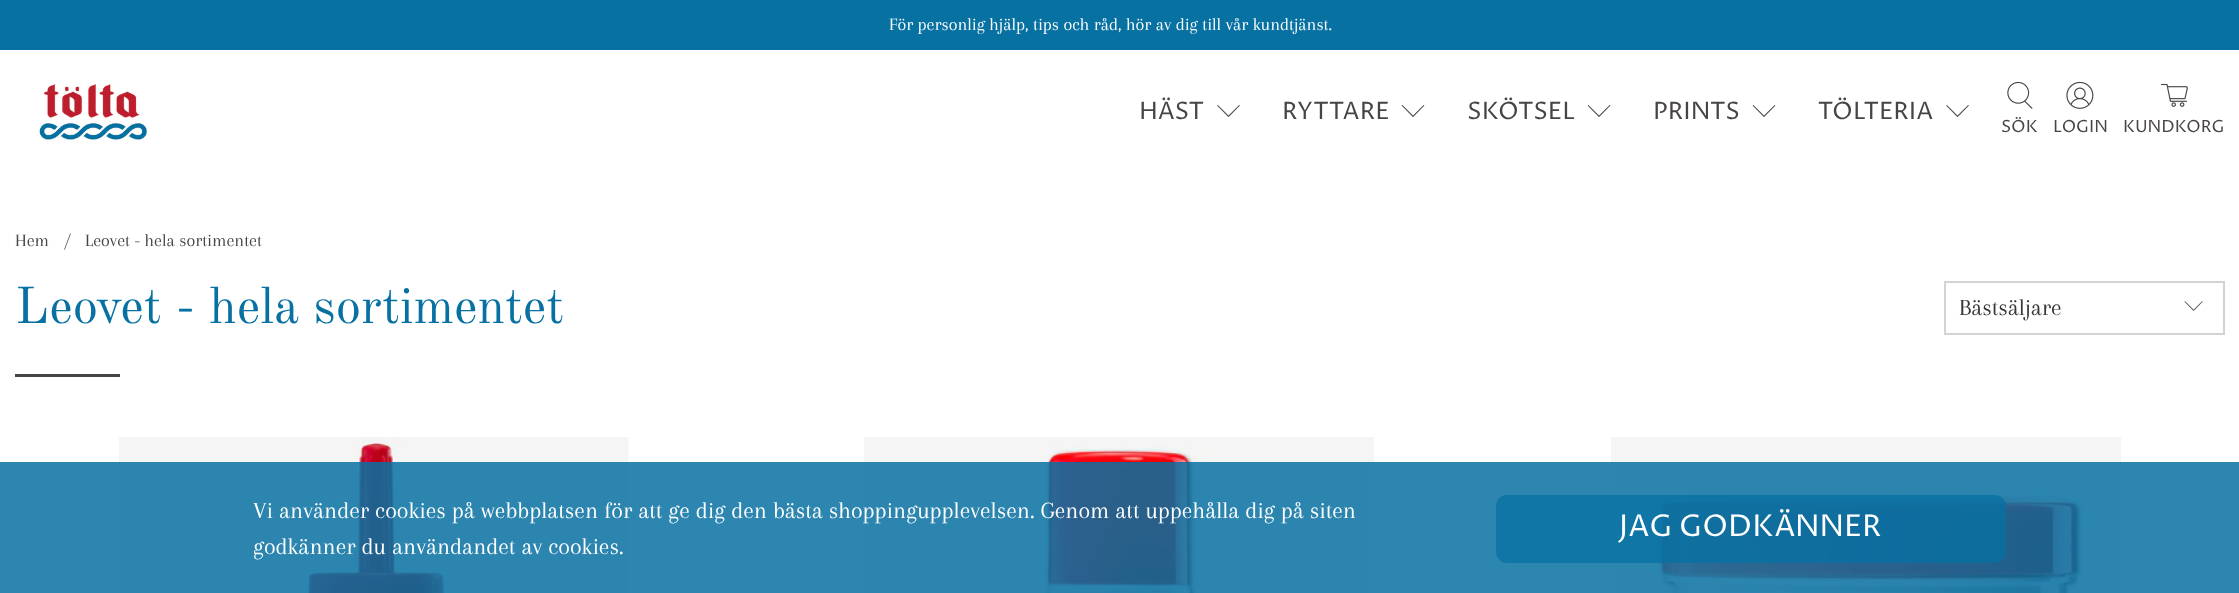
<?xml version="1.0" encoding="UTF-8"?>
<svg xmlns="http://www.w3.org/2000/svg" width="2239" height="593">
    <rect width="100%" height="100%" fill="#FFFFFF"/>
    <rect x="0" y="0" width="2239" height="50" fill="#0771A2"/>
    <text x="889" y="30" font-family="Arapey" font-size="18" fill="#FFFFFF">För personlig hjälp, tips och råd, hör av dig till vår kundtjänst.</text>
    <image x="38" y="83" width="110" height="58" href="img_01.png"/>
    <text x="1139" y="119" font-family="Proza Libre" font-size="24" fill="#484446">HÄST</text>
    <image x="1217" y="105" width="23" height="12" href="img_02.png"/>
    <text x="1282" y="119" font-family="Proza Libre" font-size="24" fill="#484446">RYTTARE</text>
    <image x="1401" y="105" width="24" height="12" href="img_03.png"/>
    <text x="1467" y="119" font-family="Proza Libre" font-size="24" fill="#484446">SKÖTSEL</text>
    <image x="1587" y="105" width="24" height="12" href="img_03.png"/>
    <text x="1653" y="119" font-family="Proza Libre" font-size="24" fill="#484446">PRINTS</text>
    <image x="1752" y="105" width="24" height="12" href="img_03.png"/>
    <text x="1818" y="119" font-family="Proza Libre" font-size="24" fill="#484446">TÖLTERIA</text>
    <image x="1946" y="105" width="23" height="12" href="img_02.png"/>
    <image x="2007" y="81" width="26" height="28" href="img_04.png"/>
    <text x="2001" y="132" font-family="Proza Libre" font-size="16.75" fill="#484446">SÖK</text>
    <image x="2066" y="81" width="28" height="28" href="img_05.png"/>
    <text x="2053" y="132" font-family="Proza Libre" font-size="16.75" fill="#484446">LOGIN</text>
    <image x="2160" y="83" width="28" height="24" href="img_06.png"/>
    <text x="2123" y="132" font-family="Proza Libre" font-size="16.75" fill="#484446">KUNDKORG</text>
    <text x="15" y="246" font-family="Arapey" font-size="18" fill="#484446">Hem</text>
    <image x="64" y="233" width="7" height="17" href="img_07.png"/>
    <text x="85" y="246" font-family="Arapey" font-size="18" fill="#484446">Leovet - hela sortimentet</text>
    <text x="15" y="323" font-family="Old Standard TT" font-size="51" fill="#0771A2">Leovet - hela sortimentet</text>
    <rect x="15" y="374" width="105" height="3" fill="#484446"/>
    <rect x="1945" y="282" width="279" height="52" fill="none" stroke="#D3D3D3" stroke-width="2"/>
    <text x="1959" y="315" font-family="Arapey" font-size="24" fill="#363636">Bästsäljare</text>
    <image x="2184" y="301" width="19" height="10" href="img_08.png"/>
    <image x="119" y="437" width="510" height="156" href="img_09.png"/>
    <image x="864" y="437" width="510" height="156" href="img_10.png"/>
    <image x="1611" y="437" width="510" height="156" href="img_11.png"/>
    <rect x="0" y="462" width="2239" height="131" fill="#0771A2" fill-opacity="0.85"/>
    <text font-family="Arapey" font-size="24" fill="#FFFFFF">
        <tspan x="253" y="518">Vi använder cookies på webbplatsen för att ge dig den bästa shoppingupplevelsen. Genom att uppehålla dig på siten</tspan>
        <tspan x="253" y="554">godkänner du användandet av cookies.</tspan>
    </text>
    <rect x="1496" y="495" width="510" height="68" rx="11" fill="#0771A2" fill-opacity="0.77"/>
    <text x="1619" y="536" font-family="Proza Libre" font-size="30" fill="#FFFFFF">JAG GODKÄNNER</text>
</svg>
